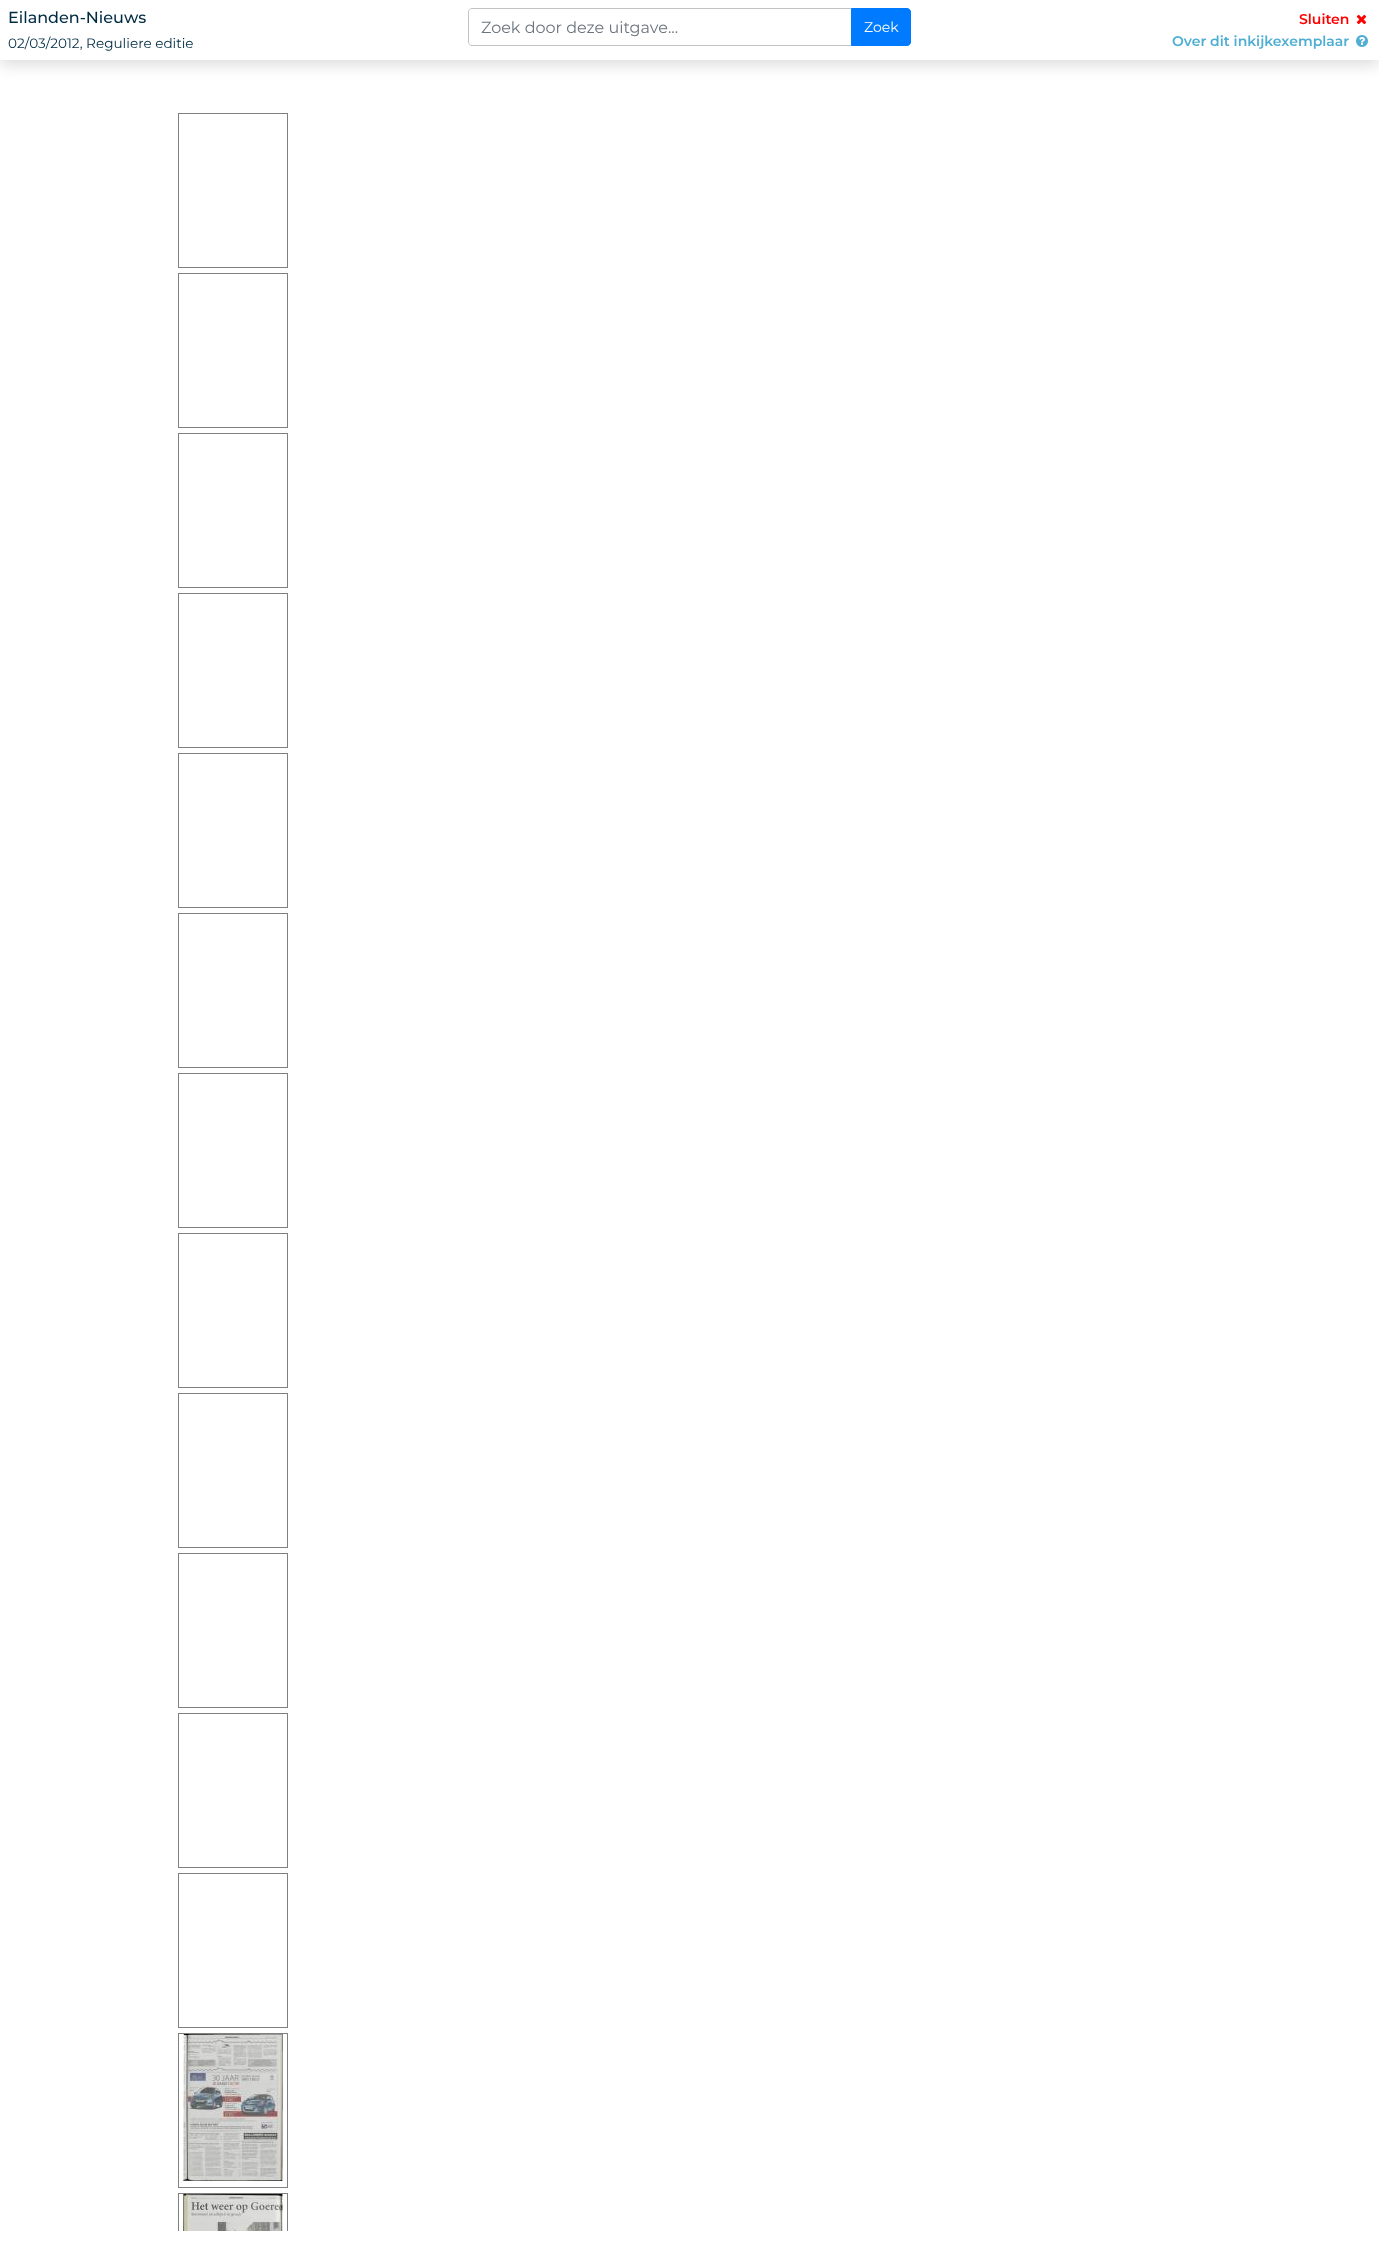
<?xml version="1.0" encoding="UTF-8"?>
<svg xmlns="http://www.w3.org/2000/svg" width="1379" height="2251">
    <defs>
        <clipPath id="clip1"><rect x="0" y="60" width="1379" height="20"/></clipPath>
        <filter id="blur1" x="-50%" y="-200%" width="200%" height="500%"><feGaussianBlur stdDeviation="7.5"/></filter>
        <clipPath id="clip2"><rect x="178" y="108" width="140" height="2123"/></clipPath>
    </defs>
    <rect width="100%" height="100%" fill="#FFFFFF"/>
    <g clip-path="url(#clip1)">
        <rect x="0" y="5" width="1379" height="60" fill="#DCDCDC" filter="url(#blur1)"/>
    </g>
    <text x="8" y="23" font-family="Montserrat" font-size="16" font-weight="500" fill="#002C43">Eilanden-Nieuws</text>
    <text x="8" y="48" font-family="Montserrat" font-size="13.6" fill="#002C43">02/03/2012, Reguliere editie</text>
    <path d="M 472 8.5 H 851.5 V 45.5 H 472 C 470 45.5 468.5 44 468.5 42 V 12 C 468.5 10 470 8.5 472 8.5 Z" fill="none" stroke="#C3C3C3"/>
    <text x="481" y="33" font-family="Montserrat" font-size="16" fill="#6C757D">Zoek door deze uitgave...</text>
    <path d="M 851.5 8.5 H 907 C 909 8.5 910.5 10 910.5 12 V 42 C 910.5 44 909 45.5 907 45.5 H 851.5 Z" fill="#007BFF" stroke="#007BFF"/>
    <text x="864" y="32" font-family="Montserrat" font-size="14" fill="#FFFFFF">Zoek</text>
    <text x="1299" y="24" font-family="Montserrat" font-size="14" font-weight="600" fill="#FF0000">Sluiten</text>
    <image x="1356" y="14" width="11" height="11" href="img_01.png"/>
    <text x="1172" y="46" font-family="Montserrat" font-size="14" font-weight="600" fill="#4FAED3">Over dit inkijkexemplaar</text>
    <image x="1356" y="35" width="12" height="12" href="img_02.png"/>
    <rect x="178.5" y="113.5" width="109" height="154" fill="none" stroke="#808080"/>
    <rect x="178.5" y="273.5" width="109" height="154" fill="none" stroke="#808080"/>
    <rect x="178.5" y="433.5" width="109" height="154" fill="none" stroke="#808080"/>
    <rect x="178.5" y="593.5" width="109" height="154" fill="none" stroke="#808080"/>
    <rect x="178.5" y="753.5" width="109" height="154" fill="none" stroke="#808080"/>
    <rect x="178.5" y="913.5" width="109" height="154" fill="none" stroke="#808080"/>
    <rect x="178.5" y="1073.5" width="109" height="154" fill="none" stroke="#808080"/>
    <rect x="178.5" y="1233.5" width="109" height="154" fill="none" stroke="#808080"/>
    <rect x="178.5" y="1393.5" width="109" height="154" fill="none" stroke="#808080"/>
    <rect x="178.5" y="1553.5" width="109" height="154" fill="none" stroke="#808080"/>
    <rect x="178.5" y="1713.5" width="109" height="154" fill="none" stroke="#808080"/>
    <rect x="178.5" y="1873.5" width="109" height="154" fill="none" stroke="#808080"/>
    <rect x="178.5" y="2033.5" width="109" height="154" fill="none" stroke="#808080"/>
    <image x="182" y="2034" width="102" height="147" href="img_03.png"/>
    <g clip-path="url(#clip2)">
        <rect x="178.5" y="2193.5" width="109" height="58" fill="none" stroke="#808080"/>
    </g>
    <image x="182" y="2194" width="102" height="37" href="img_04.png"/>
</svg>
